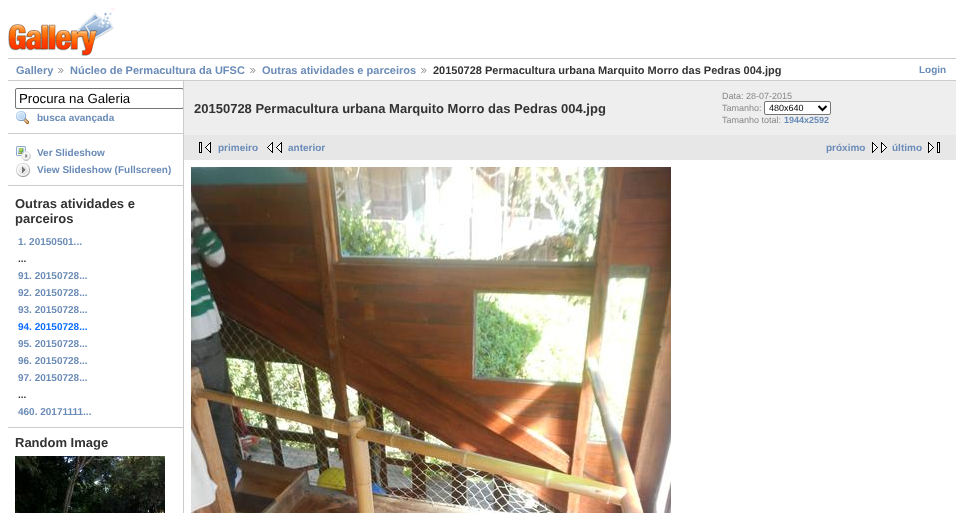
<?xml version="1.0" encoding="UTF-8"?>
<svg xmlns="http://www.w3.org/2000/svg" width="964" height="513">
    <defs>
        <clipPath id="clip1"><rect x="8" y="81" width="175" height="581"/></clipPath>
    </defs>
    <rect width="100%" height="100%" fill="#FFFFFF"/>
    <image x="8" y="8" width="107" height="48" href="img_01.png"/>
    <rect x="8" y="58" width="948" height="1" fill="#CCCCCC"/>
    <rect x="8" y="80" width="948" height="1" fill="#CCCCCC"/>
    <text x="16" y="74" font-family="Liberation Sans" font-size="11" font-weight="700" fill="#6B8CB7">Gallery</text>
    <image x="58" y="68" width="6" height="5" href="img_02.png"/>
    <text x="70" y="74" font-family="Liberation Sans" font-size="11" font-weight="700" fill="#6B8CB7">Núcleo de Permacultura da UFSC</text>
    <image x="250" y="68" width="6" height="5" href="img_02.png"/>
    <text x="262" y="74" font-family="Liberation Sans" font-size="11" font-weight="700" fill="#6B8CB7">Outras atividades e parceiros</text>
    <image x="421" y="68" width="6" height="5" href="img_02.png"/>
    <text x="433" y="74" font-family="Liberation Sans" font-size="11" font-weight="700" fill="#333333">20150728 Permacultura urbana Marquito Morro das Pedras 004.jpg</text>
    <text x="919" y="73" font-family="Liberation Sans" font-size="10" font-weight="700" fill="#6B8CB7">Login</text>
    <rect x="183" y="81" width="1" height="432" fill="#CCCCCC"/>
    <rect x="8" y="133" width="175" height="1" fill="#CCCCCC"/>
    <g clip-path="url(#clip1)">
        <rect x="15.5" y="88.5" width="168" height="20" rx="1.5" fill="none" stroke="#767676"/>
    </g>
    <text x="19" y="103" font-family="Liberation Sans" font-size="13.25" fill="#000000">Procura na Galeria</text>
    <image x="16" y="111" width="13" height="14" href="img_03.png"/>
    <text x="37" y="121" font-family="Liberation Sans" font-size="10" font-weight="700" fill="#6B8CB7">busca avançada</text>
    <rect x="8" y="185" width="175" height="1" fill="#CCCCCC"/>
    <image x="16" y="146" width="15" height="15" href="img_04.png"/>
    <text x="37" y="156" font-family="Liberation Sans" font-size="10" font-weight="700" fill="#6B8CB7">Ver Slideshow</text>
    <image x="16" y="163" width="14" height="14" href="img_05.png"/>
    <text x="37" y="173" font-family="Liberation Sans" font-size="10" font-weight="700" fill="#6B8CB7">View Slideshow (Fullscreen)</text>
    <rect x="8" y="427" width="175" height="1" fill="#CCCCCC"/>
    <text font-family="Liberation Sans" font-size="13" font-weight="700" fill="#333333">
        <tspan x="15" y="208">Outras atividades e</tspan>
        <tspan x="15" y="223">parceiros</tspan>
    </text>
    <text x="18" y="245" font-family="Liberation Sans" font-size="10" font-weight="700" fill="#6B8CB7">1. 20150501...</text>
    <text x="18" y="262" font-family="Liberation Sans" font-size="10" font-weight="700" fill="#333333">...</text>
    <text font-family="Liberation Sans" font-size="10" font-weight="700" fill="#6B8CB7">
        <tspan x="18" y="279">91. 20150728...</tspan>
        <tspan x="18" y="296">92. 20150728...</tspan>
        <tspan x="18" y="313">93. 20150728...</tspan>
    </text>
    <text x="18" y="330" font-family="Liberation Sans" font-size="10" font-weight="700" fill="#0B6CFF">94. 20150728...</text>
    <text font-family="Liberation Sans" font-size="10" font-weight="700" fill="#6B8CB7">
        <tspan x="18" y="347">95. 20150728...</tspan>
        <tspan x="18" y="364">96. 20150728...</tspan>
        <tspan x="18" y="381">97. 20150728...</tspan>
    </text>
    <text x="18" y="398" font-family="Liberation Sans" font-size="10" font-weight="700" fill="#333333">...</text>
    <text x="18" y="415" font-family="Liberation Sans" font-size="10" font-weight="700" fill="#6B8CB7">460. 20171111...</text>
    <text x="15" y="447" font-family="Liberation Sans" font-size="13" font-weight="700" fill="#333333">Random Image</text>
    <image x="15" y="456" width="150" height="57" href="img_06.png"/>
    <rect x="184" y="81" width="772" height="54" fill="#EEEEEE"/>
    <text x="194" y="113" font-family="Liberation Sans" font-size="13" font-weight="700" fill="#333333">20150728 Permacultura urbana Marquito Morro das Pedras 004.jpg</text>
    <text font-family="Liberation Sans" font-size="9" fill="#888888">
        <tspan x="722" y="99">Data: 28-07-2015</tspan>
        <tspan x="722" y="111">Tamanho:</tspan>
    </text>
    <rect x="764.5" y="101.5" width="66" height="13" rx="1.5" fill="#FFFFFF" stroke="#767676"/>
    <path d="M 818.5 106 L 822.5 110 L 826.5 106" fill="none" stroke="#000000" stroke-width="2"/>
    <text x="769" y="111" font-family="Liberation Sans" font-size="9" fill="#000000">480x640</text>
    <text x="722" y="123" font-family="Liberation Sans" font-size="9" fill="#888888">Tamanho total:</text>
    <text x="784" y="123" font-family="Liberation Sans" font-size="9" font-weight="700" fill="#6B8CB7">1944x2592</text>
    <rect x="184" y="135" width="772" height="25" fill="#E7E7E7"/>
    <image x="199" y="142" width="12" height="11" href="img_07.png"/>
    <text x="218" y="151" font-family="Liberation Sans" font-size="10" font-weight="700" fill="#6B8CB7">primeiro</text>
    <image x="267" y="142" width="15" height="11" href="img_08.png"/>
    <text x="288" y="151" font-family="Liberation Sans" font-size="10" font-weight="700" fill="#6B8CB7">anterior</text>
    <text x="826" y="151" font-family="Liberation Sans" font-size="10" font-weight="700" fill="#6B8CB7">próximo</text>
    <image x="872" y="142" width="15" height="11" href="img_09.png"/>
    <text x="892" y="151" font-family="Liberation Sans" font-size="10" font-weight="700" fill="#6B8CB7">último</text>
    <image x="928" y="142" width="12" height="11" href="img_10.png"/>
    <image x="191" y="167" width="480" height="346" href="img_11.png"/>
</svg>
